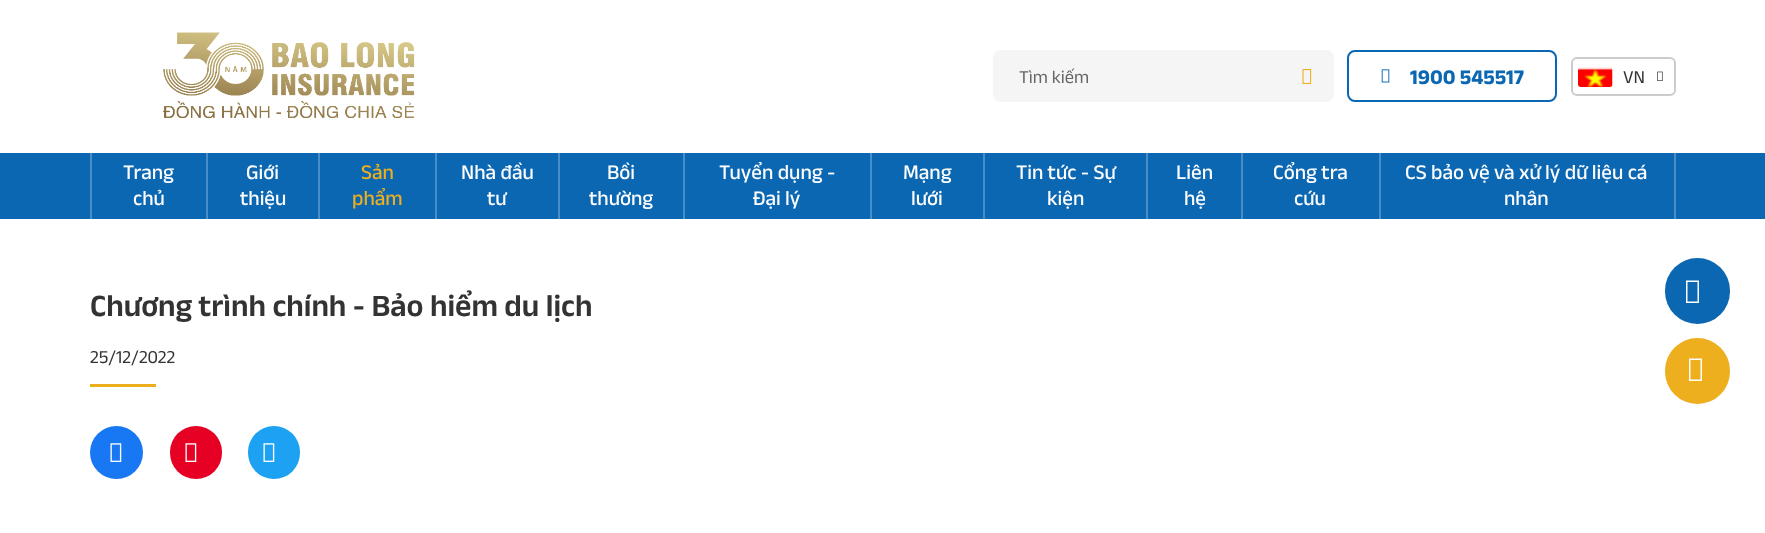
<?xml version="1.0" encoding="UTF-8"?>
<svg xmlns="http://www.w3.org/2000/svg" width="1765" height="533">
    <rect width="100%" height="100%" fill="#FFFFFF"/>
    <image x="163" y="32" width="252" height="86" href="img_01.png"/>
    <rect x="993" y="50" width="341" height="52" rx="8" fill="#F5F5F5"/>
    <text x="1019" y="83" font-family="Anek Latin" font-size="18.5" fill="#666666">Tìm kiếm</text>
    <image x="1302" y="69" width="10" height="15" href="img_02.png"/>
    <rect x="1348" y="51" width="208" height="50" rx="7" fill="none" stroke="#0B67B2" stroke-width="2"/>
    <image x="1381" y="69" width="9" height="14" href="img_03.png"/>
    <text x="1410" y="84" font-family="Anek Latin" font-size="21" font-weight="700" fill="#0B67B2">1900 545517</text>
    <rect x="1572" y="58" width="103" height="37" rx="5" fill="none" stroke="#CCCCCC" stroke-width="2"/>
    <image x="1578" y="67" width="35" height="20" href="img_04.png"/>
    <text x="1623" y="83" font-family="Anek Latin" font-size="18.5" fill="#333333">VN</text>
    <image x="1657" y="71" width="6" height="10" href="img_05.png"/>
    <rect x="0" y="153" width="1765" height="66" fill="#0B67B2"/>
    <rect x="90" y="153" width="2" height="66" fill="#488DC5"/>
    <text x="123" y="179" font-family="Anek Latin" font-size="21" font-weight="500" fill="#FFFFFF">Trang</text>
    <text x="133" y="205" font-family="Anek Latin" font-size="21" font-weight="500" fill="#FFFFFF">chủ</text>
    <rect x="206" y="153" width="2" height="66" fill="#488DC5"/>
    <text x="246" y="179" font-family="Anek Latin" font-size="21" font-weight="500" fill="#FFFFFF">Giới</text>
    <text x="240" y="205" font-family="Anek Latin" font-size="21" font-weight="500" fill="#FFFFFF">thiệu</text>
    <rect x="318" y="153" width="2" height="66" fill="#488DC5"/>
    <text x="361" y="179" font-family="Anek Latin" font-size="21" font-weight="500" fill="#EEAF1F">Sản</text>
    <text x="352" y="205" font-family="Anek Latin" font-size="21" font-weight="500" fill="#EEAF1F">phẩm</text>
    <rect x="435" y="153" width="2" height="66" fill="#488DC5"/>
    <text x="461" y="179" font-family="Anek Latin" font-size="21" font-weight="500" fill="#FFFFFF">Nhà đầu</text>
    <text x="487" y="205" font-family="Anek Latin" font-size="21" font-weight="500" fill="#FFFFFF">tư</text>
    <rect x="558" y="153" width="2" height="66" fill="#488DC5"/>
    <text x="607" y="179" font-family="Anek Latin" font-size="21" font-weight="500" fill="#FFFFFF">Bồi</text>
    <text x="589" y="205" font-family="Anek Latin" font-size="21" font-weight="500" fill="#FFFFFF">thường</text>
    <rect x="683" y="153" width="2" height="66" fill="#488DC5"/>
    <text x="719" y="179" font-family="Anek Latin" font-size="21" font-weight="500" fill="#FFFFFF">Tuyển dụng -</text>
    <text x="753" y="205" font-family="Anek Latin" font-size="21" font-weight="500" fill="#FFFFFF">Đại lý</text>
    <rect x="870" y="153" width="2" height="66" fill="#488DC5"/>
    <text x="903" y="179" font-family="Anek Latin" font-size="21" font-weight="500" fill="#FFFFFF">Mạng</text>
    <text x="911" y="205" font-family="Anek Latin" font-size="21" font-weight="500" fill="#FFFFFF">lưới</text>
    <rect x="983" y="153" width="2" height="66" fill="#488DC5"/>
    <text x="1016" y="179" font-family="Anek Latin" font-size="21" font-weight="500" fill="#FFFFFF">Tin tức - Sự</text>
    <text x="1047" y="205" font-family="Anek Latin" font-size="21" font-weight="500" fill="#FFFFFF">kiện</text>
    <rect x="1146" y="153" width="2" height="66" fill="#488DC5"/>
    <text x="1176" y="179" font-family="Anek Latin" font-size="21" font-weight="500" fill="#FFFFFF">Liên</text>
    <text x="1184" y="205" font-family="Anek Latin" font-size="21" font-weight="500" fill="#FFFFFF">hệ</text>
    <rect x="1241" y="153" width="2" height="66" fill="#488DC5"/>
    <text x="1273" y="179" font-family="Anek Latin" font-size="21" font-weight="500" fill="#FFFFFF">Cổng tra</text>
    <text x="1294" y="205" font-family="Anek Latin" font-size="21" font-weight="500" fill="#FFFFFF">cứu</text>
    <rect x="1674" y="153" width="2" height="66" fill="#488DC5"/>
    <rect x="1379" y="153" width="2" height="66" fill="#488DC5"/>
    <text x="1405" y="179" font-family="Anek Latin" font-size="21" font-weight="500" fill="#FFFFFF">CS bảo vệ và xử lý dữ liệu cá</text>
    <text x="1504" y="205" font-family="Anek Latin" font-size="21" font-weight="500" fill="#FFFFFF">nhân</text>
    <text x="90" y="316" font-family="Anek Latin" font-size="31.5" font-weight="600" fill="#333333">Chương trình chính - Bảo hiểm du lịch</text>
    <text x="90" y="363" font-family="Anek Latin" font-size="18.5" fill="#333333">25/12/2022</text>
    <rect x="90" y="384" width="66" height="3" fill="#EEAF1F"/>
    <circle cx="116.5" cy="452.5" r="26.5" fill="#1877F2"/>
    <image x="110" y="443" width="12" height="19" href="img_06.png"/>
    <rect x="170" y="426" width="52" height="53" rx="26" fill="#E60023"/>
    <image x="185" y="443" width="12" height="19" href="img_07.png"/>
    <rect x="248" y="426" width="52" height="53" rx="26" fill="#1DA1F2"/>
    <image x="263" y="443" width="12" height="19" href="img_08.png"/>
    <rect x="1665" y="258" width="65" height="66" rx="32.5" fill="#0B67B2"/>
    <path d="M 1686 303 V 280.5 H 1699 V 303 Z M 1687.5 301.5 H 1697.5 V 282 H 1687.5 Z" fill="#FFFFFF"/>
    <rect x="1665" y="338" width="65" height="66" rx="32.5" fill="#EEAF1F"/>
    <path d="M 1689 381 V 358.5 H 1702 V 381 Z M 1690.5 379.5 H 1700.5 V 360 H 1690.5 Z" fill="#FFFFFF"/>
</svg>
